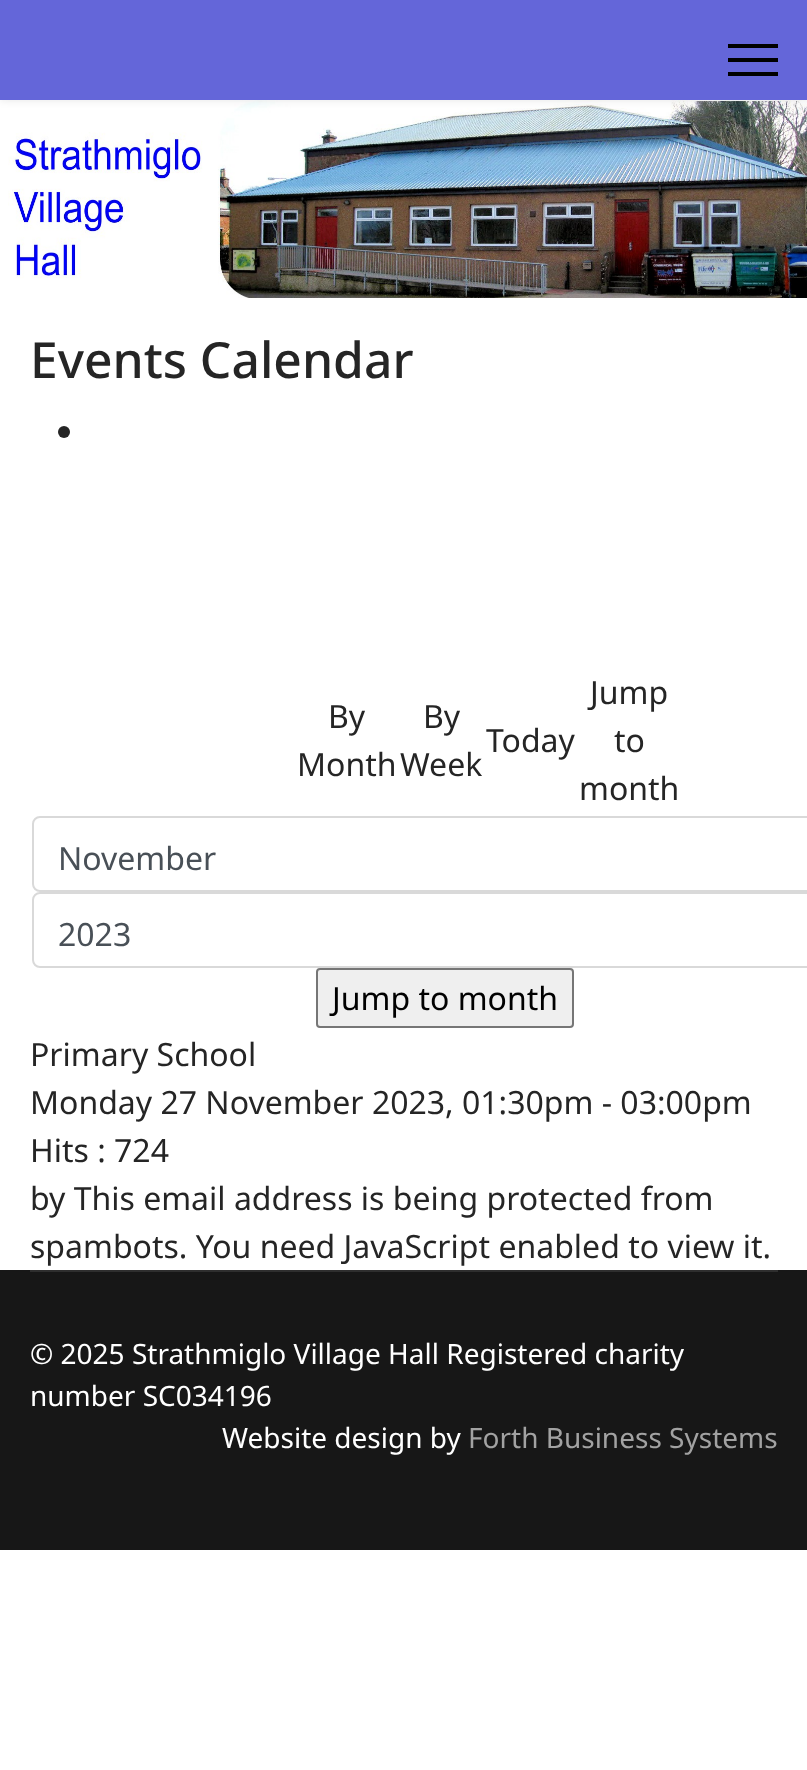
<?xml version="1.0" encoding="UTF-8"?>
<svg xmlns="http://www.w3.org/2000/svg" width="807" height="1770">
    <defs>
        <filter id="blur1" x="-50%" y="-200%" width="200%" height="500%"><feGaussianBlur stdDeviation="4"/></filter>
    </defs>
    <rect width="100%" height="100%" fill="#FFFFFF"/>
    <image x="8" y="100" width="799" height="198" href="img_01.png"/>
    <rect x="0" y="0" width="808" height="100" fill="#000000" fill-opacity="0.1" filter="url(#blur1)"/>
    <rect x="0" y="0" width="807" height="100" fill="#6466D9"/>
    <rect x="728" y="44" width="50" height="4" fill="#000000"/>
    <rect x="728" y="58" width="50" height="4" fill="#000000"/>
    <rect x="728" y="72" width="50" height="4" fill="#000000"/>
    <text x="30" y="378" font-family="Noto Sans" font-size="49.75" font-weight="500" fill="#252525">Events Calendar</text>
    <circle cx="64" cy="432" r="6" fill="#252525"/>
    <text x="328" y="728" font-family="Noto Sans" font-size="32" fill="#252525">By</text>
    <text x="297" y="776" font-family="Noto Sans" font-size="32" fill="#252525">Month</text>
    <text x="423" y="728" font-family="Noto Sans" font-size="32" fill="#252525">By</text>
    <text x="400" y="776" font-family="Noto Sans" font-size="32" fill="#252525">Week</text>
    <text x="486" y="752" font-family="Noto Sans" font-size="32" fill="#252525">Today</text>
    <text x="590" y="704" font-family="Noto Sans" font-size="32" fill="#252525">Jump</text>
    <text x="614" y="752" font-family="Noto Sans" font-size="32" fill="#252525">to</text>
    <text x="579" y="800" font-family="Noto Sans" font-size="32" fill="#252525">month</text>
    <rect x="33" y="817" width="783" height="74" rx="7" fill="none" stroke="#D9D9D9" stroke-width="2"/>
    <text x="58" y="870" font-family="Noto Sans" font-size="32" fill="#495057">November</text>
    <rect x="33" y="893" width="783" height="74" rx="7" fill="none" stroke="#D9D9D9" stroke-width="2"/>
    <text x="58" y="946" font-family="Noto Sans" font-size="32" fill="#495057">2023</text>
    <rect x="317" y="969" width="256" height="58" rx="3" fill="#EFEFEF" stroke="#767676" stroke-width="2"/>
    <text x="332" y="1010" font-family="Noto Sans" font-size="32" fill="#000000">Jump to month</text>
    <text font-family="Noto Sans" font-size="32" fill="#252525">
        <tspan x="30" y="1066">Primary School</tspan>
        <tspan x="30" y="1114">Monday 27 November 2023, 01:30pm - 03:00pm</tspan>
        <tspan x="30" y="1162">Hits : 724</tspan>
        <tspan x="30" y="1210">by This email address is being protected from</tspan>
        <tspan x="30" y="1258">spambots. You need JavaScript enabled to view it.</tspan>
    </text>
    <rect x="0" y="1270" width="807" height="280" fill="#171717"/>
    <rect x="30" y="1270" width="748" height="2" fill="#2E2E2E"/>
    <text font-family="Noto Sans" font-size="28" fill="#FFFFFF">
        <tspan x="30" y="1364">© 2025 Strathmiglo Village Hall Registered charity</tspan>
        <tspan x="30" y="1406">number SC034196</tspan>
    </text>
    <text x="222" y="1448" font-family="Noto Sans" font-size="28" fill="#FFFFFF">Website design by</text>
    <text x="468" y="1448" font-family="Noto Sans" font-size="28" fill="#A2A2A2">Forth Business Systems</text>
</svg>
